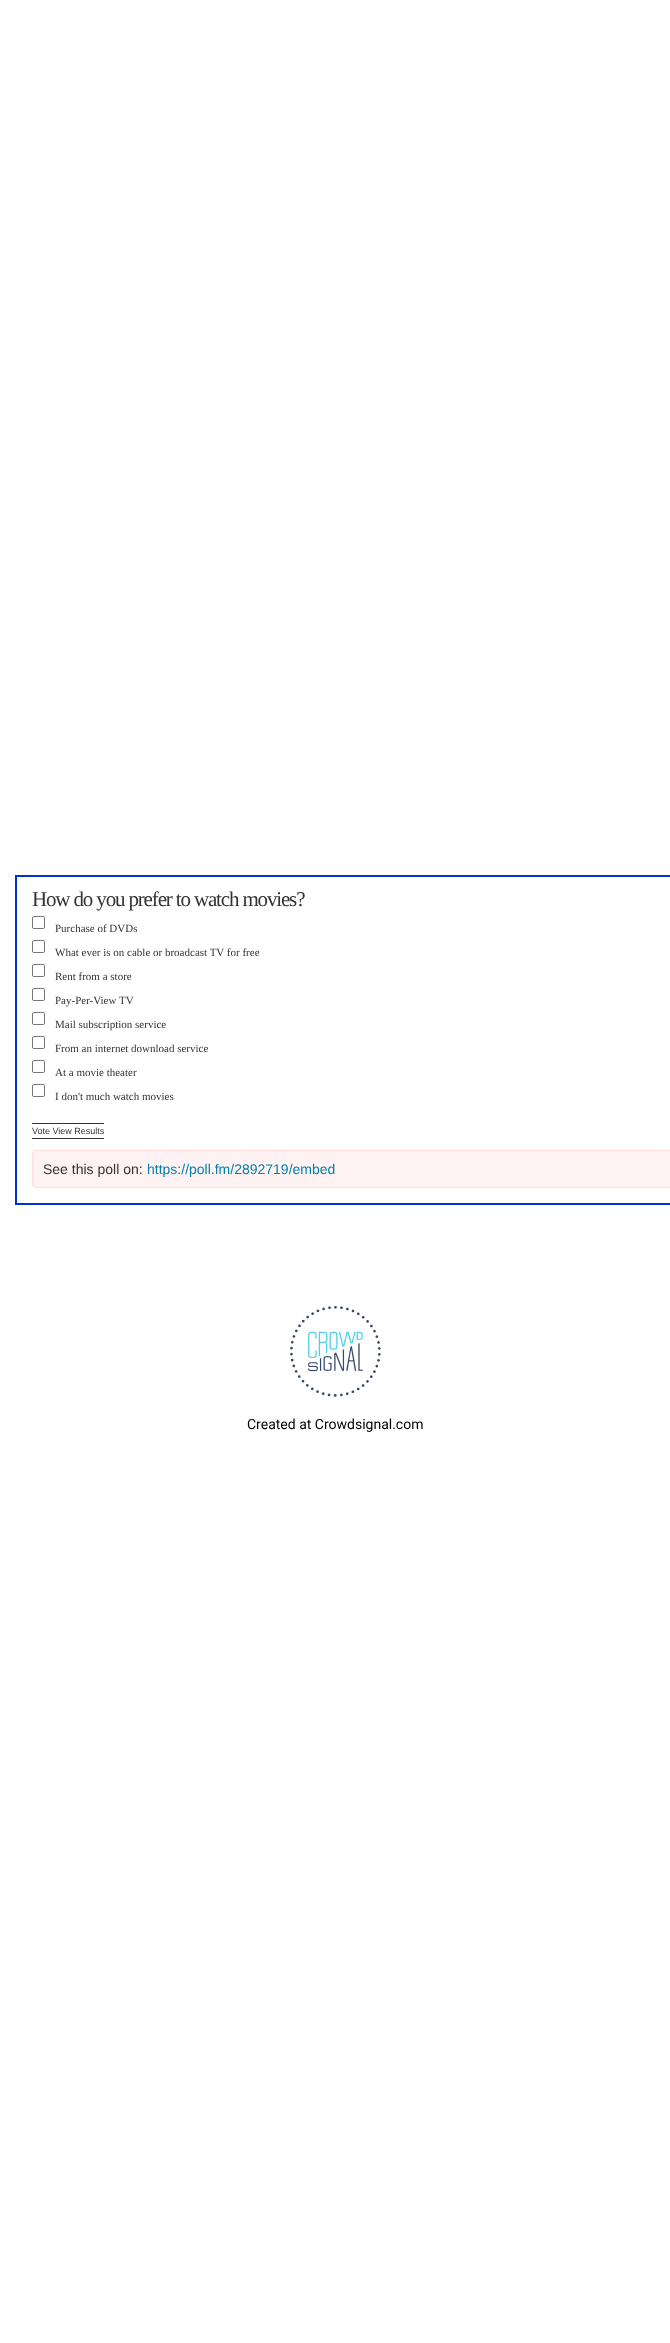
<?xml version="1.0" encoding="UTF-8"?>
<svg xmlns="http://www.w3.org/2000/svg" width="670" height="2343">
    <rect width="100%" height="100%" fill="#FFFFFF"/>
    <rect x="16" y="876" width="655" height="328" fill="none" stroke="#0033CC" stroke-width="2"/>
    <text x="32" y="906" font-family="Liberation Serif" font-size="21" letter-spacing="-1.15" fill="#333333">How do you prefer to watch movies?</text>
    <rect x="32.5" y="916.5" width="12" height="12" rx="1.5" fill="none" stroke="#767676"/>
    <text x="55" y="932" font-family="Liberation Serif" font-size="11" fill="#333333">Purchase of DVDs</text>
    <rect x="32.5" y="940.5" width="12" height="12" rx="1.5" fill="none" stroke="#767676"/>
    <text x="55" y="956" font-family="Liberation Serif" font-size="11" fill="#333333">What ever is on cable or broadcast TV for free</text>
    <rect x="32.5" y="964.5" width="12" height="12" rx="1.5" fill="none" stroke="#767676"/>
    <text x="55" y="980" font-family="Liberation Serif" font-size="11" fill="#333333">Rent from a store</text>
    <rect x="32.5" y="988.5" width="12" height="12" rx="1.5" fill="none" stroke="#767676"/>
    <text x="55" y="1004" font-family="Liberation Serif" font-size="11" fill="#333333">Pay-Per-View TV</text>
    <rect x="32.5" y="1012.5" width="12" height="12" rx="1.5" fill="none" stroke="#767676"/>
    <text x="55" y="1028" font-family="Liberation Serif" font-size="11" fill="#333333">Mail subscription service</text>
    <rect x="32.5" y="1036.5" width="12" height="12" rx="1.5" fill="none" stroke="#767676"/>
    <text x="55" y="1052" font-family="Liberation Serif" font-size="11" fill="#333333">From an internet download service</text>
    <rect x="32.5" y="1060.5" width="12" height="12" rx="1.5" fill="none" stroke="#767676"/>
    <text x="55" y="1076" font-family="Liberation Serif" font-size="11" fill="#333333">At a movie theater</text>
    <rect x="32.5" y="1084.5" width="12" height="12" rx="1.5" fill="none" stroke="#767676"/>
    <text x="55" y="1100" font-family="Liberation Serif" font-size="11" fill="#333333">I don't much watch movies</text>
    <text x="32" y="1134" font-family="Liberation Sans" font-size="9" fill="#333333">Vote View Results</text>
    <rect x="32" y="1123" width="72" height="1" fill="#333333"/>
    <rect x="32" y="1138" width="72" height="1" fill="#333333"/>
    <rect x="32.5" y="1150.5" width="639" height="37" rx="3.5" fill="#FFF2F2" stroke="#FFDCDC"/>
    <text x="43" y="1174" font-family="Liberation Sans" font-size="14" fill="#333333">See this poll on:</text>
    <text x="147" y="1174" font-family="Liberation Sans" font-size="14" fill="#0182A8">https://poll.fm/2892719/embed</text>
    <image x="290" y="1306" width="91" height="91" href="img_01.png"/>
    <text x="247" y="1429" font-family="Roboto" font-size="14" fill="#000000">Created at Crowdsignal.com</text>
</svg>
